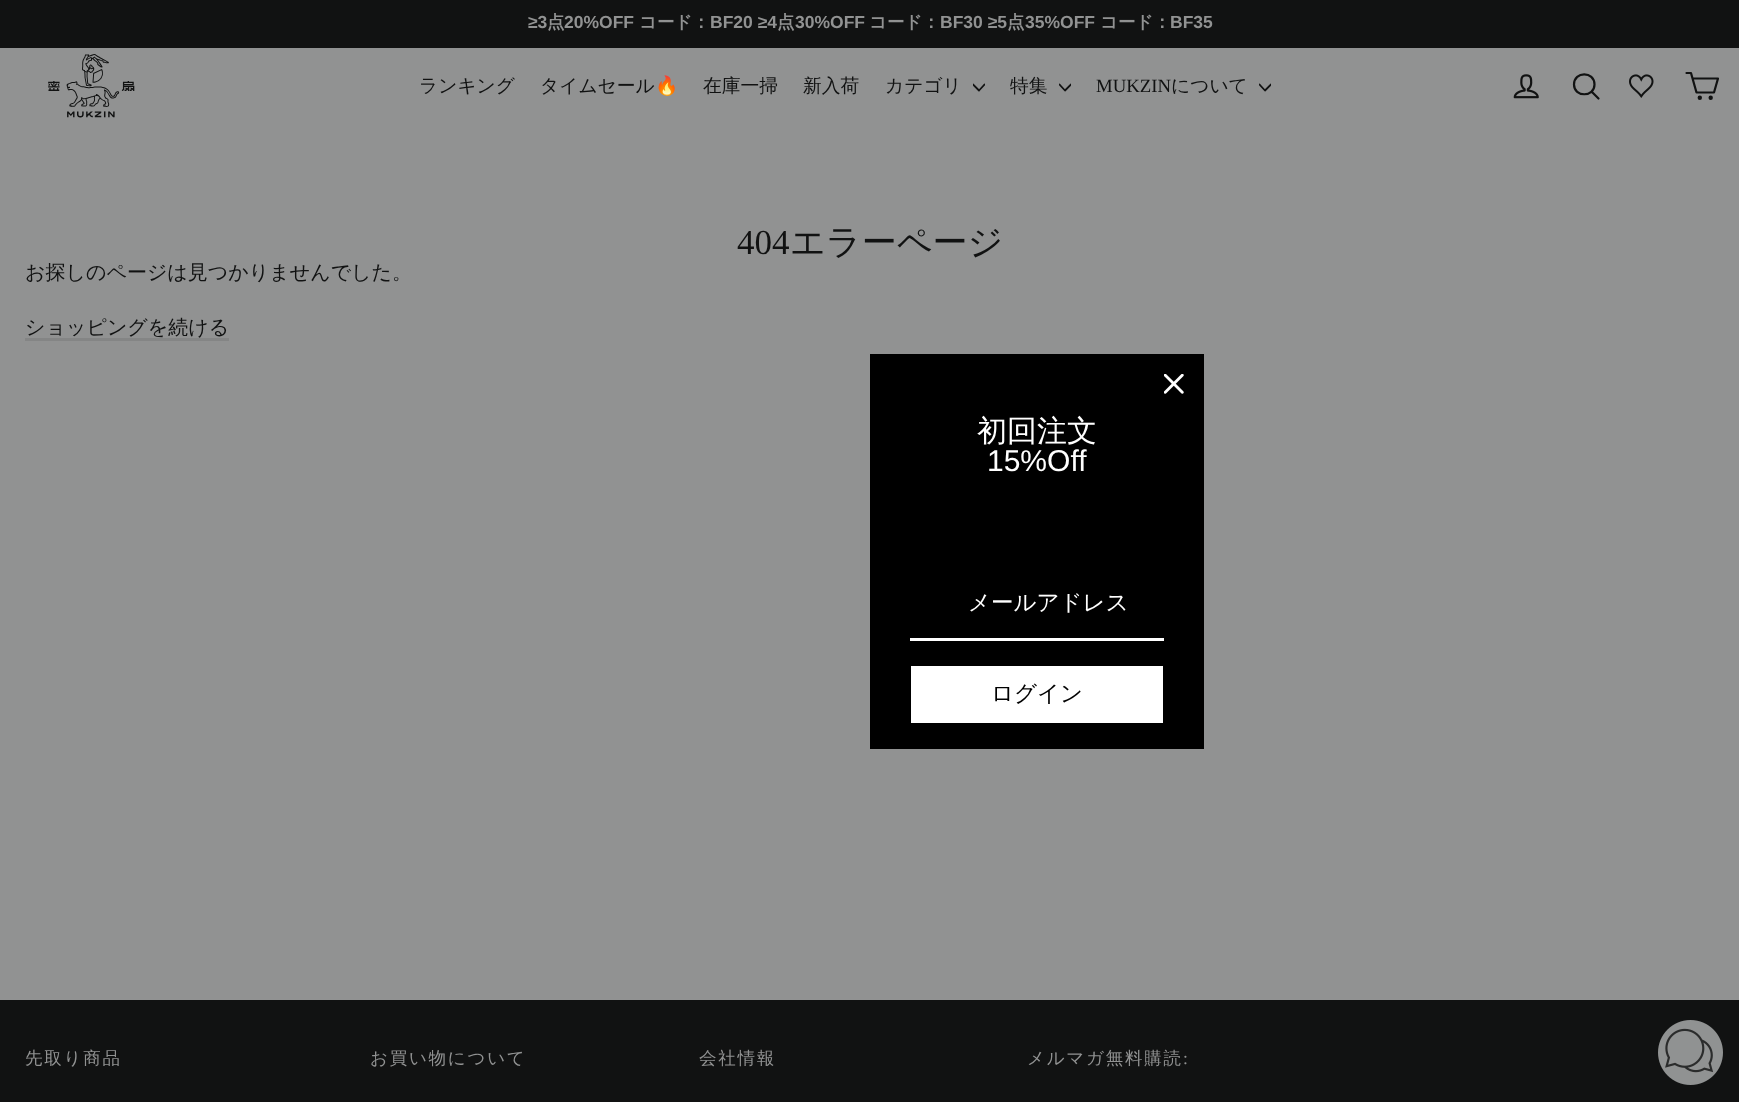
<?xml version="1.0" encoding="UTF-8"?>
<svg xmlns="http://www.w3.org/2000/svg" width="1739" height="1102">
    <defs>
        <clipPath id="clip1"><rect x="973" y="81" width="12" height="13"/></clipPath>
        <clipPath id="clip2"><rect x="1059" y="81" width="12" height="13"/></clipPath>
        <clipPath id="clip3"><rect x="1259" y="81" width="12" height="13"/></clipPath>
    </defs>
    <rect width="100%" height="100%" fill="#919292"/>
    <rect x="0" y="0" width="1739" height="48" fill="#111212"/>
    <text x="528" y="28" font-family="Liberation Sans" font-size="17.5" font-weight="700" fill="#919292">≥3</text>
    <text x="547" y="28" font-family="WenQuanYi Zen Hei" font-size="17.5" font-weight="700" fill="#919292">点</text>
    <text x="564" y="28" font-family="Liberation Sans" font-size="17.5" font-weight="700" fill="#919292">20%OFF</text>
    <text x="639" y="28" font-family="WenQuanYi Zen Hei" font-size="17.5" font-weight="700" fill="#919292">コード：</text>
    <text x="710" y="28" font-family="Liberation Sans" font-size="17.5" font-weight="700" fill="#919292">BF20 ≥4</text>
    <text x="777" y="28" font-family="WenQuanYi Zen Hei" font-size="17.5" font-weight="700" fill="#919292">点</text>
    <text x="795" y="28" font-family="Liberation Sans" font-size="17.5" font-weight="700" fill="#919292">30%OFF</text>
    <text x="869" y="28" font-family="WenQuanYi Zen Hei" font-size="17.5" font-weight="700" fill="#919292">コード：</text>
    <text x="940" y="28" font-family="Liberation Sans" font-size="17.5" font-weight="700" fill="#919292">BF30 ≥5</text>
    <text x="1007" y="28" font-family="WenQuanYi Zen Hei" font-size="17.5" font-weight="700" fill="#919292">点</text>
    <text x="1025" y="28" font-family="Liberation Sans" font-size="17.5" font-weight="700" fill="#919292">35%OFF</text>
    <text x="1100" y="28" font-family="WenQuanYi Zen Hei" font-size="17.5" font-weight="700" fill="#919292">コード：</text>
    <text x="1170" y="28" font-family="Liberation Sans" font-size="17.5" font-weight="700" fill="#919292">BF35</text>
    <image x="48" y="54" width="87" height="64" href="img_01.png"/>
    <text x="419" y="92" font-family="WenQuanYi Zen Hei" font-size="18.75" font-weight="500" fill="#111212">ランキング</text>
    <text x="540" y="92" font-family="WenQuanYi Zen Hei" font-size="18.75" font-weight="500" fill="#111212">タイムセール</text>
    <text x="655" y="92" font-family="Noto Color Emoji" font-size="18.75" fill="#111212">🔥</text>
    <text x="703" y="92" font-family="WenQuanYi Zen Hei" font-size="18.75" font-weight="500" fill="#111212">在庫一掃</text>
    <text x="803" y="92" font-family="WenQuanYi Zen Hei" font-size="18.75" font-weight="500" fill="#111212">新入荷</text>
    <text x="885" y="92" font-family="WenQuanYi Zen Hei" font-size="18.75" font-weight="500" fill="#111212">カテゴリ</text>
    <g clip-path="url(#clip1)">
        <path d="M 973 84.5 L 979 90.5 L 984.5 84.5" fill="none" stroke="#111212" stroke-width="1.8" stroke-linecap="round" stroke-linejoin="round"/>
    </g>
    <text x="1010" y="92" font-family="WenQuanYi Zen Hei" font-size="18.75" font-weight="500" fill="#111212">特集</text>
    <g clip-path="url(#clip2)">
        <path d="M 1059.5 84.5 L 1065 90.5 L 1071 84.5" fill="none" stroke="#111212" stroke-width="1.8" stroke-linecap="round" stroke-linejoin="round"/>
    </g>
    <text x="1096" y="92" font-family="Liberation Serif" font-size="18.75" fill="#111212">MUKZIN</text>
    <text x="1171" y="92" font-family="WenQuanYi Zen Hei" font-size="18.75" font-weight="500" fill="#111212">について</text>
    <g clip-path="url(#clip3)">
        <path d="M 1259.5 84.5 L 1265 90.5 L 1271 84.5" fill="none" stroke="#111212" stroke-width="1.8" stroke-linecap="round" stroke-linejoin="round"/>
    </g>
    <image x="1513" y="74" width="26" height="25" href="img_02.png"/>
    <path d="M 1594.5 84.5 C 1594.5 97.5 1574 97.5 1574 84.5 C 1574 71 1594.5 71 1594.5 84.5 Z M 1598.5 98.5 L 1591.5 91.5" fill="none" stroke="#111212" stroke-width="2.2" stroke-linecap="round" stroke-linejoin="round"/>
    <image x="1629" y="74" width="25" height="24" href="img_03.png"/>
    <path d="M 1692.5 78.5 H 1718 L 1714 92.5 H 1696.5 L 1691 73 H 1686.5" fill="none" stroke="#111212" stroke-width="2.2" stroke-linecap="round" stroke-linejoin="round"/>
    <circle cx="1699.8" cy="97.7" r="1.1" fill="none" stroke="#111212" stroke-width="2.2"/>
    <circle cx="1710.7" cy="97.7" r="1.1" fill="none" stroke="#111212" stroke-width="2.2"/>
    <text x="737" y="254" font-family="Liberation Serif" font-size="35" fill="#111212">404</text>
    <text x="790" y="254" font-family="WenQuanYi Zen Hei" font-size="35" font-weight="500" fill="#111212">エラーページ</text>
    <text x="25" y="279" font-family="WenQuanYi Zen Hei" font-size="20" font-weight="500" fill="#111212">お探しのページは見つかりませんでした。</text>
    <text x="25" y="334" font-family="WenQuanYi Zen Hei" font-size="20" font-weight="500" fill="#111212">ショッピングを続ける</text>
    <rect x="25" y="338" width="204" height="3" fill="#848585"/>
    <rect x="0" y="1000" width="1739" height="102" fill="#111212"/>
    <text x="25" y="1064" font-family="WenQuanYi Zen Hei" font-size="17.5" font-weight="500" letter-spacing="1.75" fill="#919292">先取り商品</text>
    <text x="370" y="1064" font-family="WenQuanYi Zen Hei" font-size="17.5" font-weight="500" letter-spacing="1.75" fill="#919292">お買い物について</text>
    <text x="699" y="1064" font-family="WenQuanYi Zen Hei" font-size="17.5" font-weight="500" letter-spacing="1.75" fill="#919292">会社情報</text>
    <text x="1027" y="1064" font-family="WenQuanYi Zen Hei" font-size="17.5" font-weight="500" letter-spacing="1.75" fill="#919292">メルマガ無料購読</text>
    <text x="1183" y="1064" font-family="Liberation Serif" font-size="17.5" letter-spacing="1.75" fill="#919292">:</text>
    <rect x="870" y="354" width="334" height="395" fill="#000000"/>
    <image x="1164" y="374" width="20" height="20" href="img_04.png"/>
    <text x="977" y="441" font-family="WenQuanYi Zen Hei" font-size="30" font-weight="500" fill="#FFFFFF">初回注文</text>
    <text x="987" y="471" font-family="Liberation Sans" font-size="30" fill="#FFFFFF">15%Off</text>
    <rect x="910" y="638" width="254" height="3" fill="#FFFFFF"/>
    <text x="968" y="610" font-family="WenQuanYi Zen Hei" font-size="22.5" font-weight="500" fill="#FFFFFF">メールアドレス</text>
    <rect x="911" y="666" width="252" height="57" fill="#FFFFFF"/>
    <text x="991" y="701" font-family="WenQuanYi Zen Hei" font-size="22.5" font-weight="500" fill="#000000">ログイン</text>
    <image x="1658" y="1020" width="65" height="65" href="img_05.png"/>
</svg>
